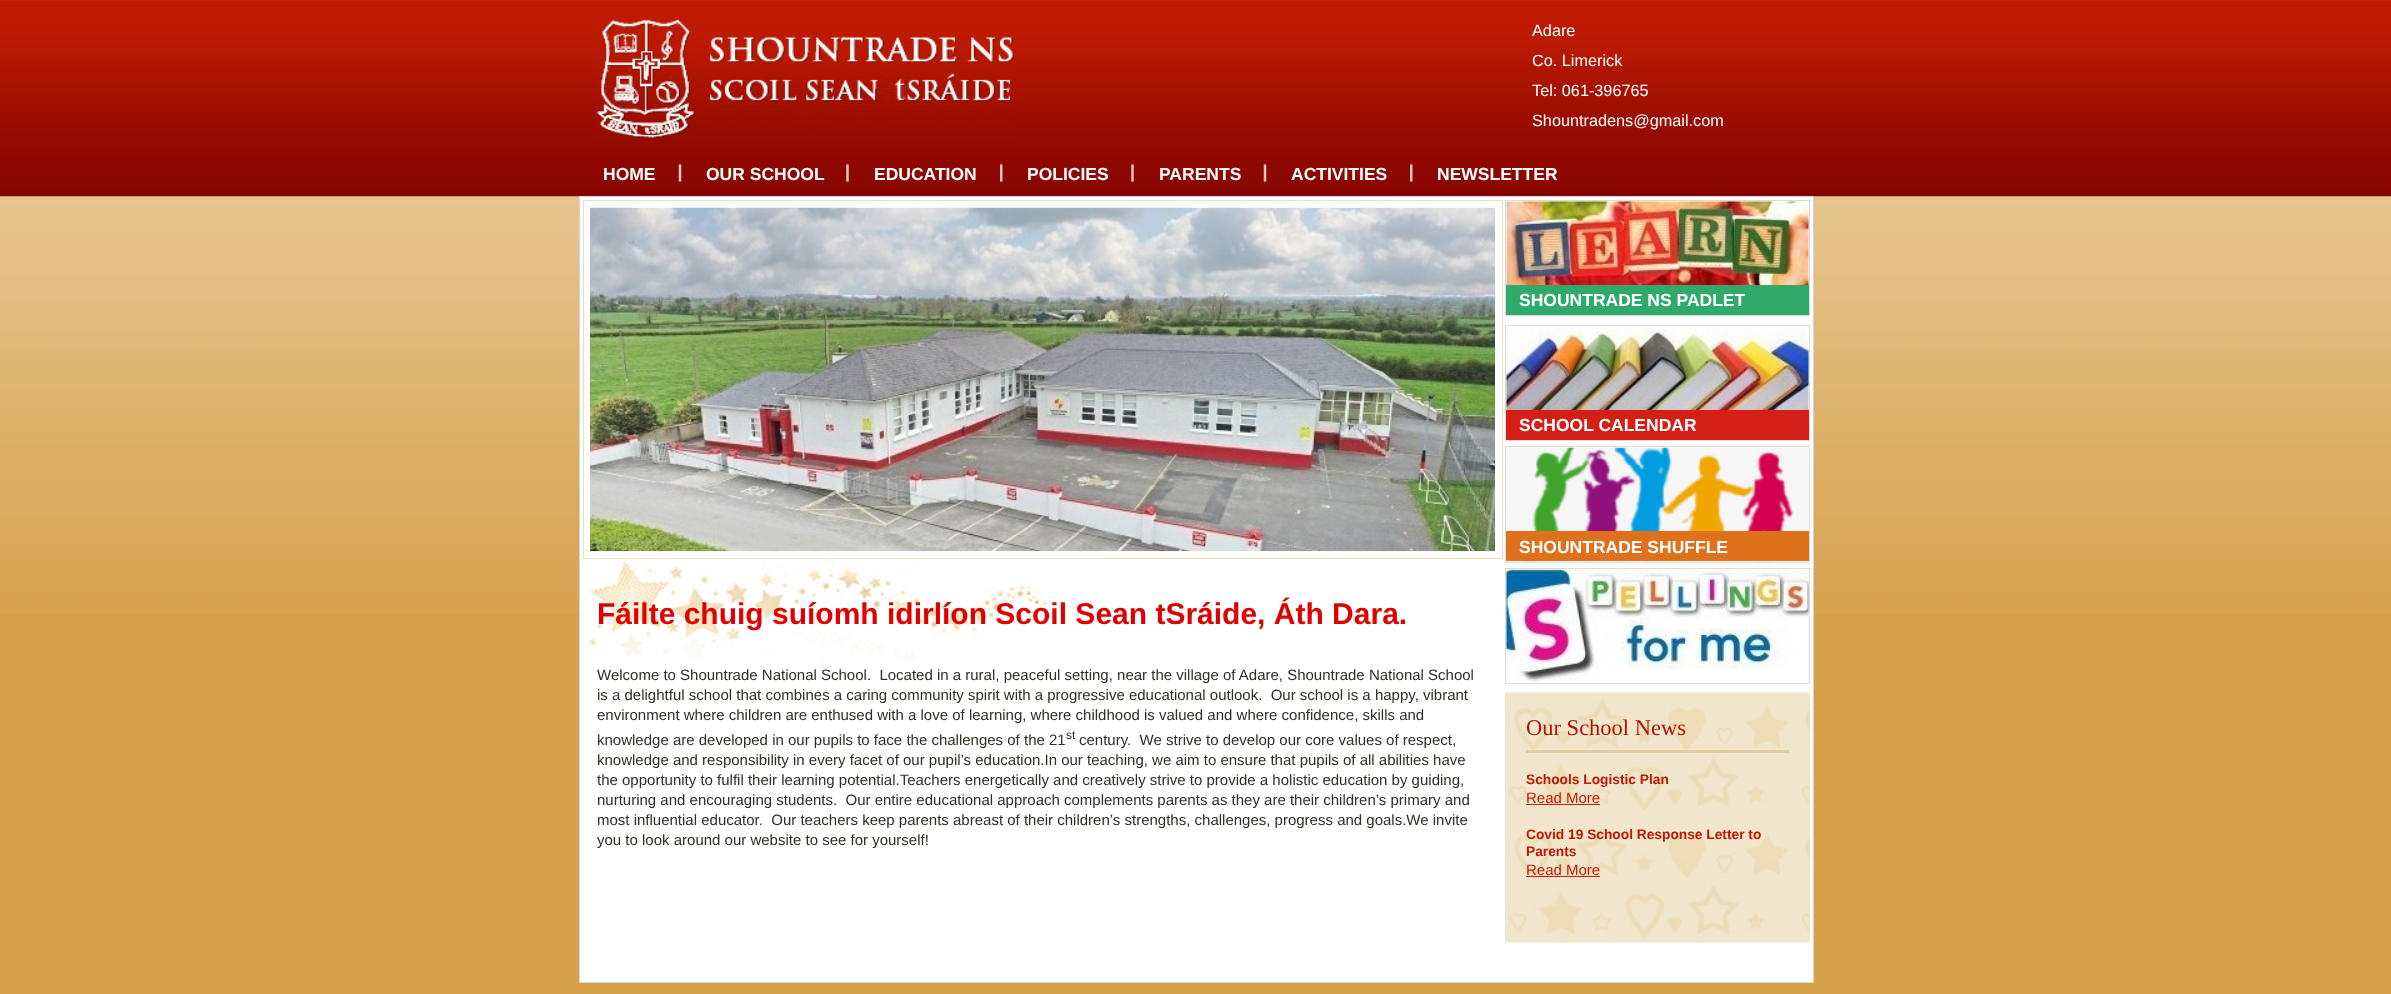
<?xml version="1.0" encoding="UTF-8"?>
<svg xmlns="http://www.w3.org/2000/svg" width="2391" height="994">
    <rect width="100%" height="100%" fill="#D6A14B"/>
    <image x="0" y="196" width="2391" height="417" href="img_01.png"/>
    <image x="0" y="0" width="2391" height="197" href="img_02.png"/>
    <image x="595" y="16" width="420" height="126" href="img_03.png"/>
    <text font-family="Liberation Sans" font-size="16.25" fill="#FFFFFF">
        <tspan x="1532" y="36">Adare</tspan>
        <tspan x="1532" y="66">Co. Limerick</tspan>
        <tspan x="1532" y="96">Tel: 061-396765</tspan>
        <tspan x="1532" y="126">Shountradens@gmail.com</tspan>
    </text>
    <image x="678" y="163" width="4" height="20" href="img_04.png"/>
    <text x="603" y="180" font-family="Liberation Sans" font-size="17.5" font-weight="700" fill="#FFFFFF">HOME</text>
    <image x="846" y="163" width="3" height="20" href="img_05.png"/>
    <text x="706" y="180" font-family="Liberation Sans" font-size="17.5" font-weight="700" fill="#FFFFFF">OUR SCHOOL</text>
    <image x="1000" y="163" width="3" height="20" href="img_06.png"/>
    <text x="874" y="180" font-family="Liberation Sans" font-size="17.5" font-weight="700" fill="#FFFFFF">EDUCATION</text>
    <image x="1131" y="163" width="3" height="20" href="img_05.png"/>
    <text x="1027" y="180" font-family="Liberation Sans" font-size="17.5" font-weight="700" fill="#FFFFFF">POLICIES</text>
    <image x="1263" y="163" width="4" height="20" href="img_04.png"/>
    <text x="1159" y="180" font-family="Liberation Sans" font-size="17.5" font-weight="700" fill="#FFFFFF">PARENTS</text>
    <image x="1410" y="163" width="3" height="20" href="img_06.png"/>
    <text x="1291" y="180" font-family="Liberation Sans" font-size="17.5" font-weight="700" fill="#FFFFFF">ACTIVITIES</text>
    <text x="1437" y="180" font-family="Liberation Sans" font-size="17.5" font-weight="700" fill="#FFFFFF">NEWSLETTER</text>
    <rect x="579.5" y="196.5" width="1234" height="786" fill="#FFFFFF" stroke="#D4D4D4"/>
    <rect x="583.5" y="200.5" width="919" height="358" fill="none" stroke="#EDDEBE"/>
    <image x="590" y="207" width="905" height="345" href="img_07.png"/>
    <image x="583" y="558" width="521" height="108" href="img_08.png"/>
    <text x="597" y="624" font-family="Liberation Sans" font-size="30" font-weight="700" fill="#E00000">Fáilte chuig suíomh idirlíon Scoil Sean tSráide, Áth Dara.</text>
    <text font-family="Liberation Sans" font-size="15" fill="#322E26" xml:space="preserve"><tspan x="597" y="680">Welcome to Shountrade National School.  Located in a rural, peaceful setting, near the village of Adare, Shountrade National School</tspan><tspan x="597" y="700">is a delightful school that combines a caring community spirit with a progressive educational outlook.  Our school is a happy, vibrant</tspan><tspan x="597" y="720">environment where children are enthused with a love of learning, where childhood is valued and where confidence, skills and</tspan><tspan x="597" y="745">knowledge are developed in our pupils to face the challenges of the 21</tspan></text>
    <text x="1066" y="739" font-family="Liberation Sans" font-size="12" fill="#322E26">st</text>
    <text x="1079" y="745" font-family="Liberation Sans" font-size="15" fill="#322E26" xml:space="preserve">century.  We strive to develop our core values of respect,</text>
    <text font-family="Liberation Sans" font-size="15" fill="#322E26" xml:space="preserve"><tspan x="597" y="765">knowledge and responsibility in every facet of our pupil’s education.In our teaching, we aim to ensure that pupils of all abilities have</tspan><tspan x="597" y="785">the opportunity to fulfil their learning potential.Teachers energetically and creatively strive to provide a holistic education by guiding,</tspan><tspan x="597" y="805">nurturing and encouraging students.  Our entire educational approach complements parents as they are their children’s primary and</tspan><tspan x="597" y="825">most influential educator.  Our teachers keep parents abreast of their children’s strengths, challenges, progress and goals.We invite</tspan><tspan x="597" y="845">you to look around our website to see for yourself!</tspan></text>
    <rect x="1505.5" y="200.5" width="304" height="115" fill="none" stroke="#DBDBDB"/>
    <image x="1506" y="201" width="303" height="84" href="img_09.png"/>
    <rect x="1506" y="285" width="303" height="30" fill="#2FAA6B"/>
    <text x="1519" y="306" font-family="Liberation Sans" font-size="17.5" font-weight="700" fill="#FFFFFF">SHOUNTRADE NS PADLET</text>
    <rect x="1505.5" y="325.5" width="304" height="115" fill="none" stroke="#DBDBDB"/>
    <image x="1506" y="326" width="303" height="84" href="img_10.png"/>
    <rect x="1506" y="410" width="303" height="30" fill="#D31F16"/>
    <text x="1519" y="431" font-family="Liberation Sans" font-size="17.5" font-weight="700" fill="#FFFFFF">SCHOOL CALENDAR</text>
    <rect x="1505.5" y="446.5" width="304" height="116" fill="none" stroke="#DBDBDB"/>
    <image x="1506" y="447" width="303" height="115" href="img_11.png"/>
    <rect x="1506" y="531" width="303" height="30" fill="#DF701C"/>
    <text x="1519" y="553" font-family="Liberation Sans" font-size="17.5" font-weight="700" fill="#FFFFFF">SHOUNTRADE SHUFFLE</text>
    <rect x="1505.5" y="568.5" width="304" height="115" fill="none" stroke="#DBDBDB"/>
    <image x="1506" y="569" width="303" height="113" href="img_12.png"/>
    <image x="1505" y="692" width="305" height="251" href="img_13.png"/>
    <rect x="1526" y="750" width="263" height="3" fill="#E3CCA2"/>
    <text x="1526" y="735" font-family="Liberation Serif" font-size="22.5" fill="#B21302">Our School News</text>
    <text x="1526" y="784" font-family="Liberation Sans" font-size="13.75" font-weight="700" fill="#BD1802">Schools Logistic Plan</text>
    <text x="1526" y="803" font-family="Liberation Sans" font-size="15" fill="#C41C03">Read More</text>
    <rect x="1526" y="804" width="74" height="1" fill="#C41C03"/>
    <text font-family="Liberation Sans" font-size="13.75" font-weight="700" fill="#BD1802">
        <tspan x="1526" y="839">Covid 19 School Response Letter to</tspan>
        <tspan x="1526" y="856">Parents</tspan>
    </text>
    <text x="1526" y="875" font-family="Liberation Sans" font-size="15" fill="#C41C03">Read More</text>
    <rect x="1526" y="876" width="74" height="1" fill="#C41C03"/>
</svg>
